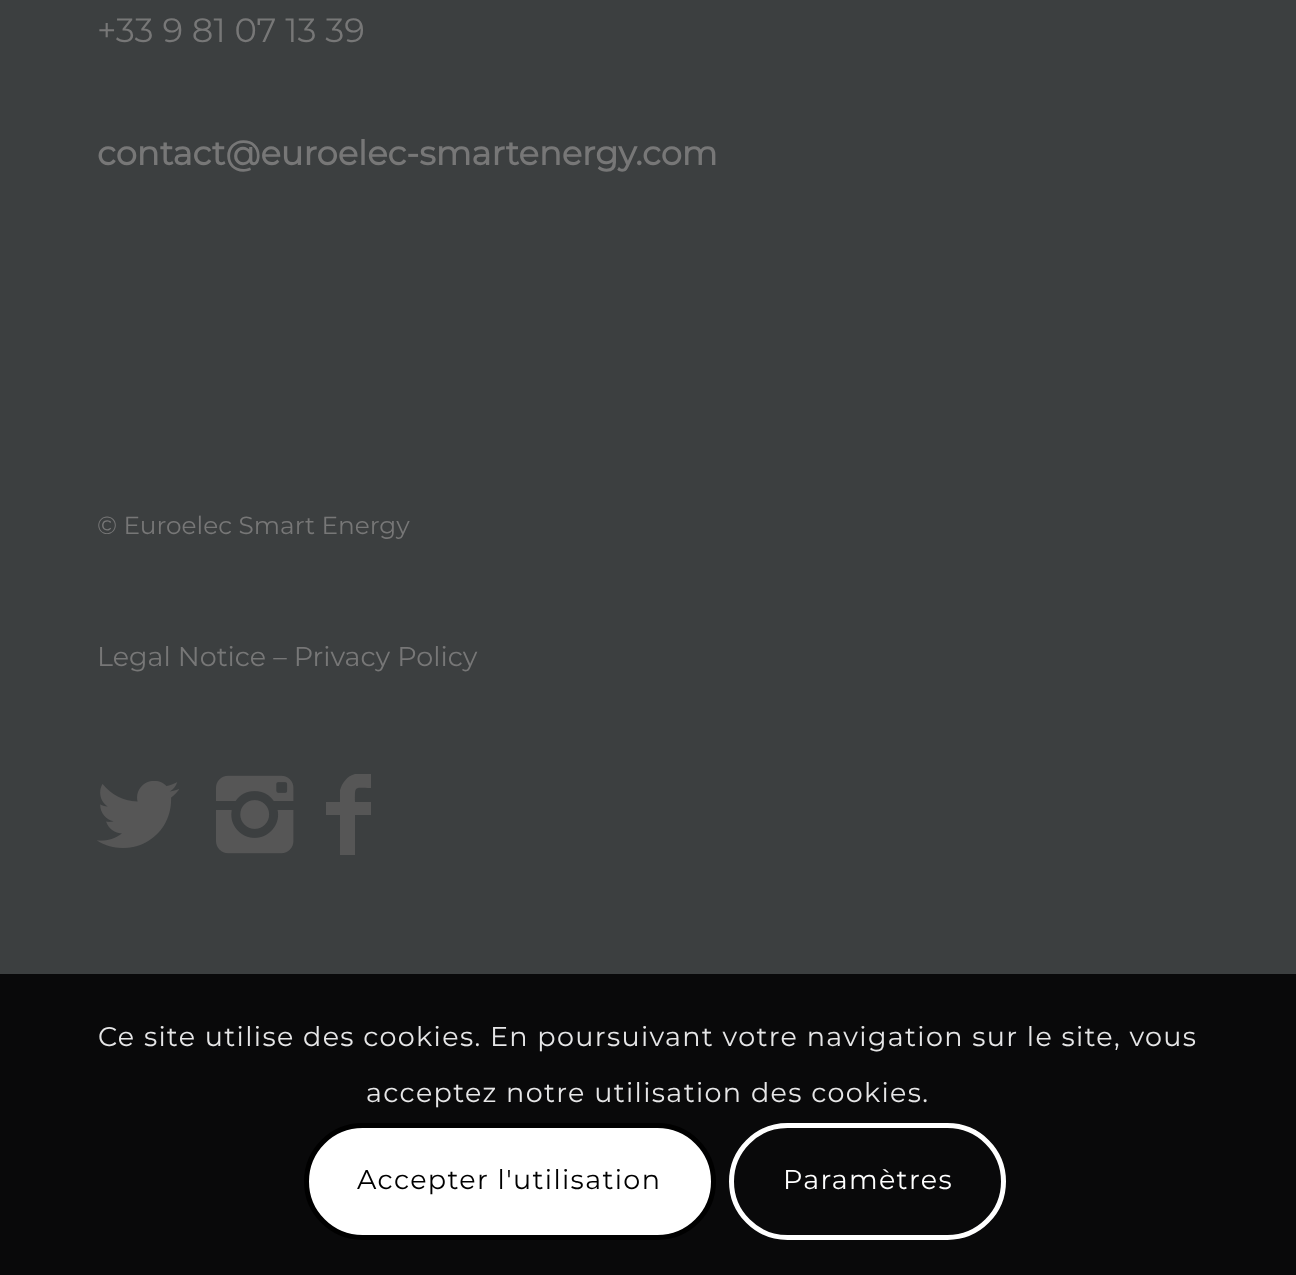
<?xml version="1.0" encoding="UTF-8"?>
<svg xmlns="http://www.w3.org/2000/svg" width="1296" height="1275">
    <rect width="100%" height="100%" fill="#3C3F40"/>
    <text x="97" y="42" font-family="Montserrat" font-size="33.75" font-weight="100" fill="#777777">+33 9 81 07 13 39</text>
    <text x="97" y="165" font-family="Montserrat" font-size="33.75" font-weight="700" fill="#777777">contact@euroelec-smartenergy.com</text>
    <text x="97" y="534" font-family="Montserrat" font-size="24.75" font-weight="100" fill="#777777">© Euroelec Smart Energy</text>
    <text x="97" y="666" font-family="Montserrat" font-size="27" font-weight="100" fill="#777777">Legal Notice – Privacy Policy</text>
    <image x="97" y="781" width="82" height="67" href="img_01.png"/>
    <image x="216" y="775" width="78" height="79" href="img_02.png"/>
    <path d="M 371 788 C 354 788 355 785 355 802 H 371 V 815 H 355 V 855 H 340 V 815 H 326 V 802 H 340 V 790 C 342 783 347 776 355 774 H 371 Z" fill="#565656"/>
    <rect x="0" y="974" width="1296" height="301" fill="#09090A"/>
    <text x="98" y="1046" font-family="Montserrat" font-size="27" font-weight="100" letter-spacing="1.35" fill="#E6E6E7">Ce site utilise des cookies. En poursuivant votre navigation sur le site, vous</text>
    <text x="366" y="1102" font-family="Montserrat" font-size="27" font-weight="100" letter-spacing="1.35" fill="#E6E6E7">acceptez notre utilisation des cookies.</text>
    <rect x="306.5" y="1125.5" width="407" height="112" rx="56" fill="#FFFFFF" stroke="#000000" stroke-width="5"/>
    <text x="357" y="1189" font-family="Montserrat" font-size="27" font-weight="100" letter-spacing="1.35" fill="#000000">Accepter l'utilisation</text>
    <rect x="731.5" y="1125.5" width="272" height="112" rx="56" fill="none" stroke="#FFFFFF" stroke-width="5"/>
    <text x="783" y="1189" font-family="Montserrat" font-size="27" font-weight="100" letter-spacing="1.35" fill="#FFFFFF">Paramètres</text>
</svg>
